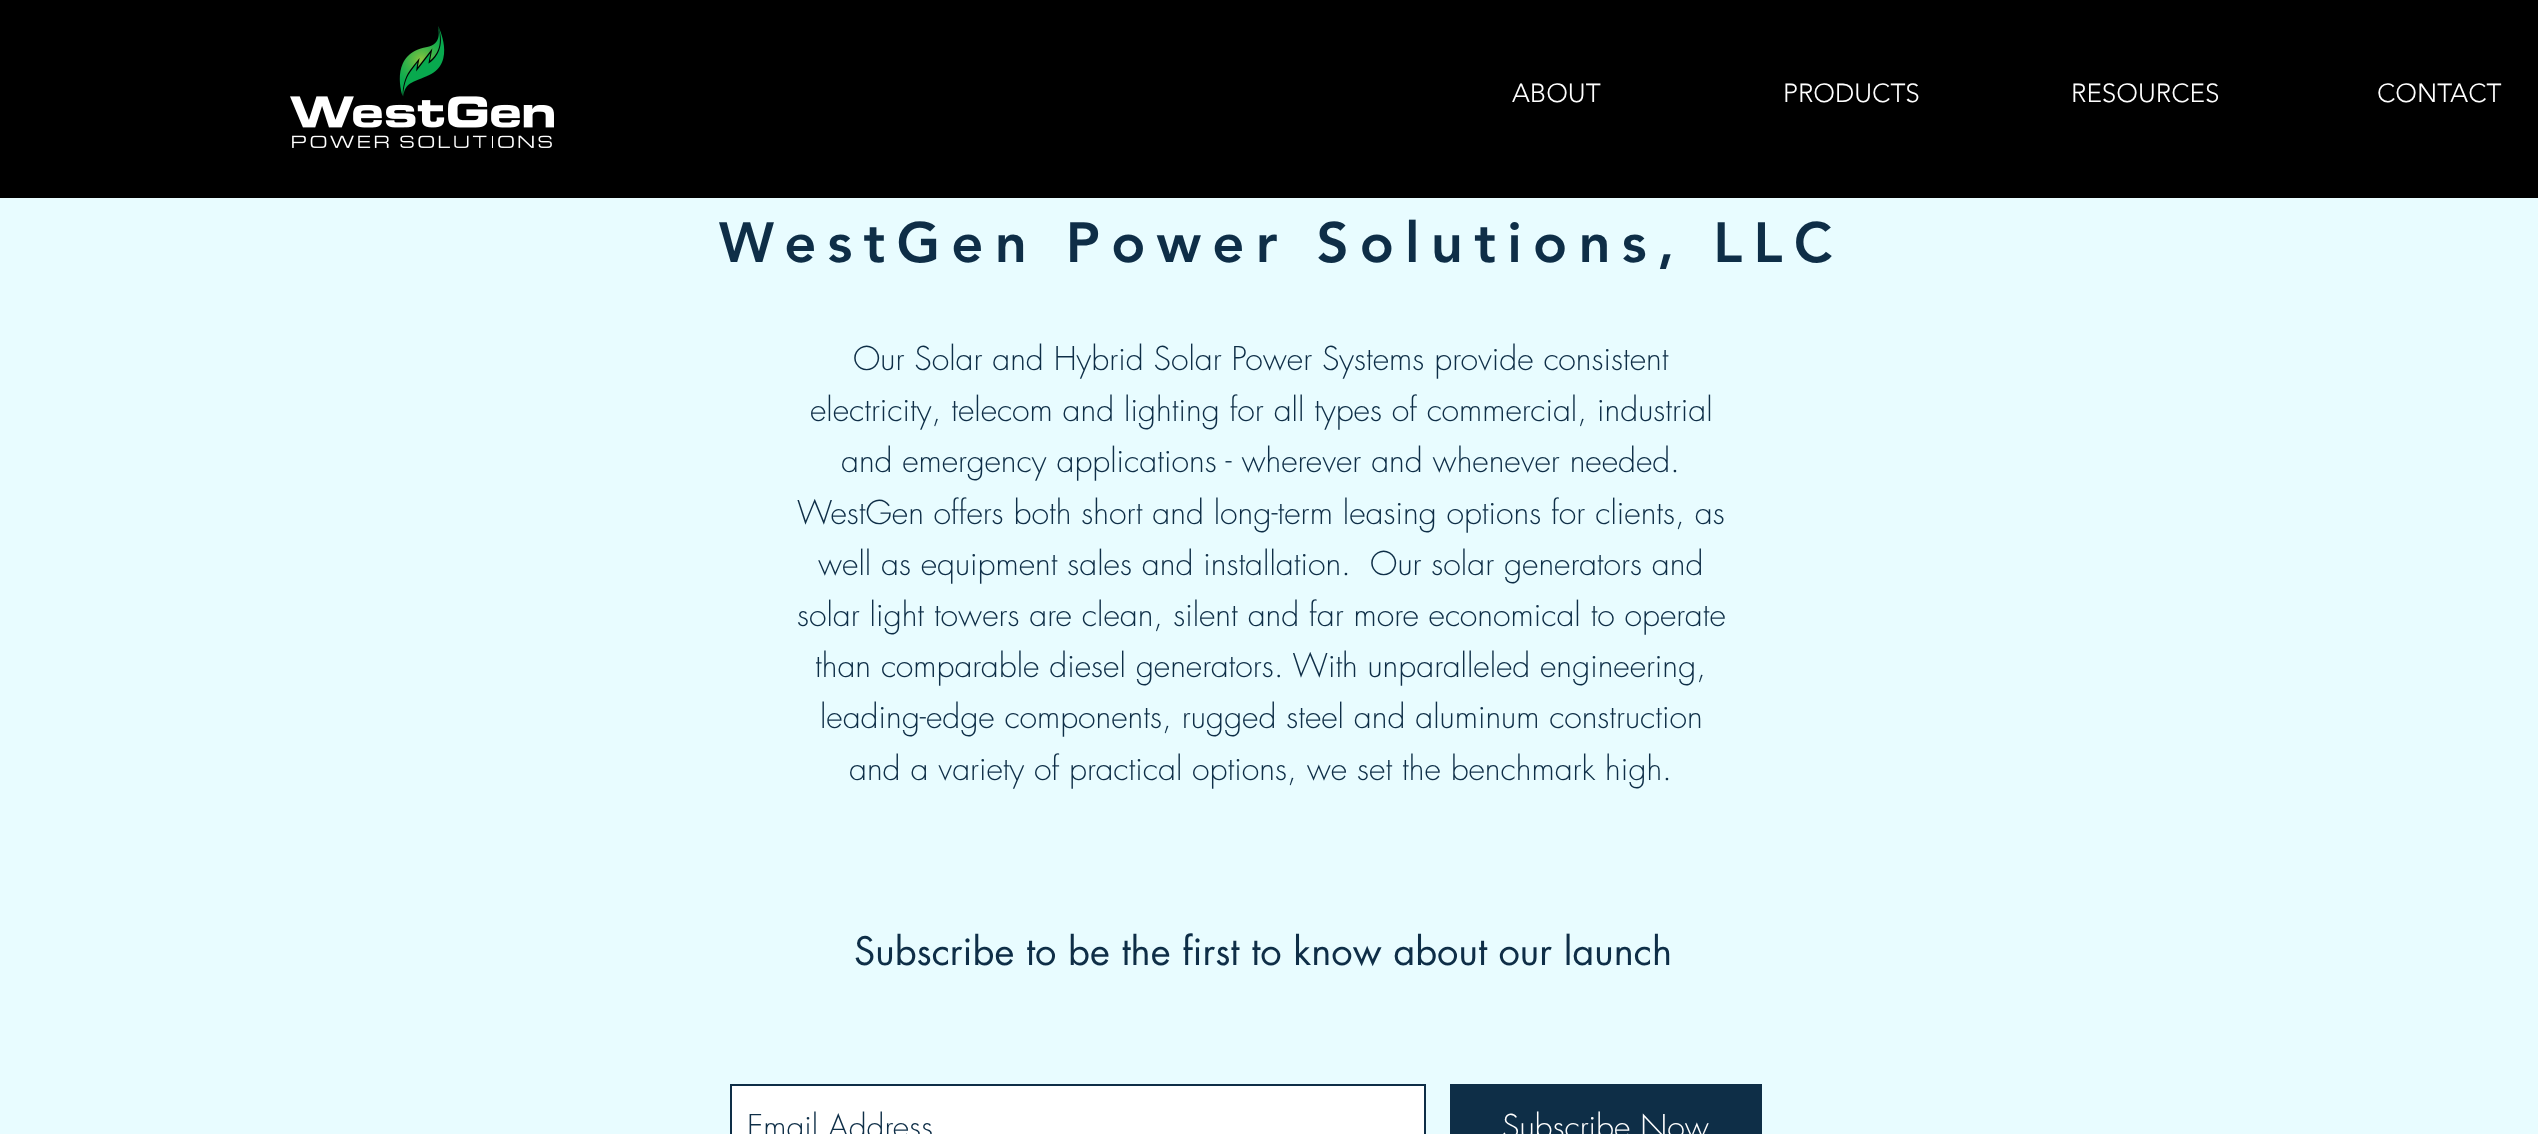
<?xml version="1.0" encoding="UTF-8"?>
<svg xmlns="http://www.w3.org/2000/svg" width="2538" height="1134">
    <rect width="100%" height="100%" fill="#E8FCFF"/>
    <rect x="0" y="0" width="2538" height="198" fill="#000000"/>
    <image x="290" y="26" width="264" height="122" href="img_01.png"/>
    <text x="1512" y="102" font-family="'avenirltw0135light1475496'" font-size="26" font-weight="300" fill="#FFFFFF">ABOUT</text>
    <text x="1783" y="102" font-family="'avenirltw0135light1475496'" font-size="26" font-weight="300" fill="#FFFFFF">PRODUCTS</text>
    <text x="2071" y="102" font-family="'avenirltw0135light1475496'" font-size="26" font-weight="300" fill="#FFFFFF">RESOURCES</text>
    <text x="2377" y="102" font-family="'avenirltw0135light1475496'" font-size="26" font-weight="300" fill="#FFFFFF">CONTACT</text>
    <text x="719" y="262" font-family="'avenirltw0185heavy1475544'" font-size="56" font-weight="900" letter-spacing="11.2" fill="#0E2E47">WestGen Power Solutions, LLC</text>
    <text x="853" y="370" font-family="futura" font-size="32" font-weight="300" fill="#0E2E47">Our Solar and Hybrid Solar Power Systems provide consistent</text>
    <text x="810" y="421" font-family="futura" font-size="32" font-weight="300" fill="#0E2E47">electricity, telecom and lighting for all types of commercial, industrial</text>
    <text x="841" y="472" font-family="futura" font-size="32" font-weight="300" fill="#0E2E47">and emergency applications - wherever and whenever needed.</text>
    <text x="797" y="524" font-family="futura" font-size="32" font-weight="300" fill="#0E2E47">WestGen offers both short and long-term leasing options for clients, as</text>
    <text x="818" y="575" font-family="futura" font-size="32" font-weight="300" fill="#0E2E47" xml:space="preserve">well as equipment sales and installation.  Our solar generators and</text>
    <text x="797" y="626" font-family="futura" font-size="32" font-weight="300" fill="#0E2E47">solar light towers are clean, silent and far more economical to operate</text>
    <text x="815" y="677" font-family="futura" font-size="32" font-weight="300" fill="#0E2E47">than comparable diesel generators. With unparalleled engineering,</text>
    <text x="820" y="728" font-family="futura" font-size="32" font-weight="300" fill="#0E2E47">leading-edge components, rugged steel and aluminum construction</text>
    <text x="849" y="780" font-family="futura" font-size="32" font-weight="300" fill="#0E2E47">and a variety of practical options, we set the benchmark high.</text>
    <text x="854" y="965" font-family="futura" font-size="38" fill="#0E2E47">Subscribe to be the first to know about our launch</text>
    <rect x="731" y="1085" width="694" height="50" fill="#FFFFFF" stroke="#0E2E47" stroke-width="2"/>
    <text x="747" y="1138" font-family="futura" font-size="32" font-weight="300" fill="#0E2E47">Email Address</text>
    <rect x="1450" y="1084" width="312" height="50" fill="#0E2E47"/>
    <text x="1502" y="1138" font-family="futura" font-size="32" font-weight="300" fill="#FFFFFF">Subscribe Now</text>
</svg>
